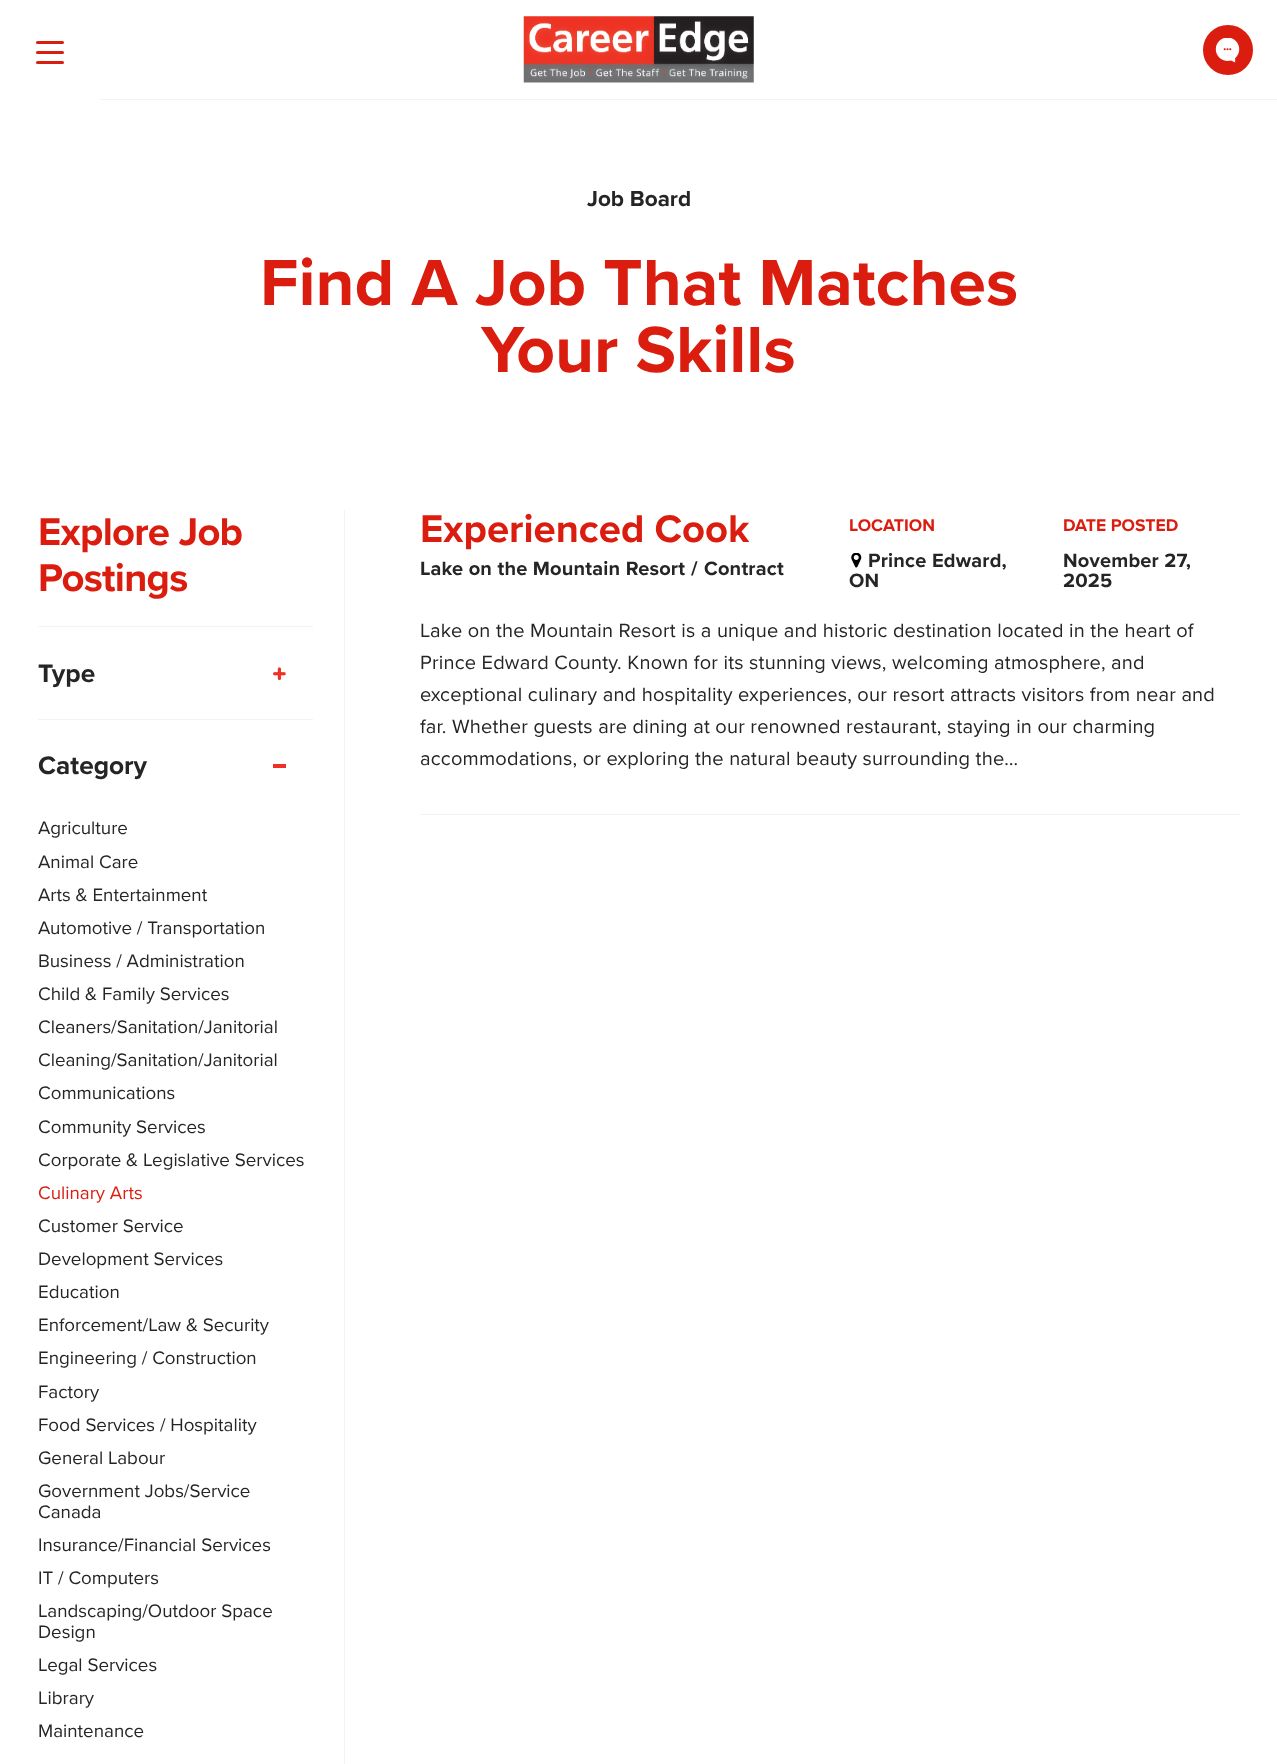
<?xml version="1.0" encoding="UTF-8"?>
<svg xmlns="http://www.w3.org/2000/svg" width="1277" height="1764">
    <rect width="100%" height="100%" fill="#FFFFFF"/>
    <rect x="100" y="99" width="1177" height="1" fill="#F1F3F7"/>
    <rect x="36" y="41" width="28" height="3" rx="1.5" fill="#DB1D0F"/>
    <rect x="36" y="51" width="28" height="3" rx="1.5" fill="#DB1D0F"/>
    <rect x="36" y="61" width="28" height="3" rx="1.5" fill="#DB1D0F"/>
    <image x="523" y="16" width="231" height="67" href="img_01.png"/>
    <circle cx="1228" cy="50" r="23.5" fill="#DB1D0F" stroke="#DB1D0F" stroke-width="3"/>
    <image x="1215" y="38" width="25" height="25" href="img_02.png"/>
    <text x="587" y="206" font-family="Proxima Nova" font-size="22.5" font-weight="700" fill="#252525">Job Board</text>
    <text x="260" y="305" font-family="Proxima Nova" font-size="67.5" font-weight="700" fill="#DB1D0F">Find A Job That Matches</text>
    <text x="481" y="372" font-family="Proxima Nova" font-size="67.5" font-weight="700" fill="#DB1D0F">Your Skills</text>
    <text font-family="Proxima Nova" font-size="40" font-weight="700" letter-spacing="-0.75" fill="#DB1D0F">
        <tspan x="38" y="545">Explore Job</tspan>
        <tspan x="38" y="591">Postings</tspan>
    </text>
    <rect x="38" y="626" width="275" height="1" fill="#F1F3F7"/>
    <rect x="38" y="719" width="275" height="1" fill="#F1F3F7"/>
    <text x="38" y="682" font-family="Proxima Nova" font-size="26.25" font-weight="700" fill="#252525">Type</text>
    <image x="273" y="667" width="13" height="14" href="img_03.png"/>
    <text x="38" y="774" font-family="Proxima Nova" font-size="26.25" font-weight="700" fill="#252525">Category</text>
    <rect x="273" y="764" width="13" height="4" fill="#EE3124"/>
    <text font-family="Proxima Nova" font-size="18.75" fill="#252525">
        <tspan x="38" y="834">Agriculture</tspan>
        <tspan x="38" y="868">Animal Care</tspan>
        <tspan x="38" y="901">Arts &amp; Entertainment</tspan>
        <tspan x="38" y="934">Automotive / Transportation</tspan>
        <tspan x="38" y="967">Business / Administration</tspan>
        <tspan x="38" y="1000">Child &amp; Family Services</tspan>
        <tspan x="38" y="1033">Cleaners/Sanitation/Janitorial</tspan>
        <tspan x="38" y="1066">Cleaning/Sanitation/Janitorial</tspan>
        <tspan x="38" y="1099">Communications</tspan>
        <tspan x="38" y="1133">Community Services</tspan>
        <tspan x="38" y="1166">Corporate &amp; Legislative Services</tspan>
    </text>
    <text x="38" y="1199" font-family="Proxima Nova" font-size="18.75" fill="#DB1D0F">Culinary Arts</text>
    <text font-family="Proxima Nova" font-size="18.75" fill="#252525">
        <tspan x="38" y="1232">Customer Service</tspan>
        <tspan x="38" y="1265">Development Services</tspan>
        <tspan x="38" y="1298">Education</tspan>
        <tspan x="38" y="1331">Enforcement/Law &amp; Security</tspan>
        <tspan x="38" y="1364">Engineering / Construction</tspan>
        <tspan x="38" y="1398">Factory</tspan>
        <tspan x="38" y="1431">Food Services / Hospitality</tspan>
        <tspan x="38" y="1464">General Labour</tspan>
        <tspan x="38" y="1497">Government Jobs/Service</tspan>
        <tspan x="38" y="1518">Canada</tspan>
        <tspan x="38" y="1551">Insurance/Financial Services</tspan>
        <tspan x="38" y="1584">IT / Computers</tspan>
        <tspan x="38" y="1617">Landscaping/Outdoor Space</tspan>
        <tspan x="38" y="1638">Design</tspan>
        <tspan x="38" y="1671">Legal Services</tspan>
        <tspan x="38" y="1704">Library</tspan>
        <tspan x="38" y="1737">Maintenance</tspan>
    </text>
    <rect x="344" y="510" width="1" height="1254" fill="#F1F3F7"/>
    <rect x="420" y="814" width="820" height="1" fill="#F1F3F7"/>
    <text x="420" y="542" font-family="Proxima Nova" font-size="40" font-weight="700" fill="#DB1D0F">Experienced Cook</text>
    <text x="420" y="575" font-family="Proxima Nova" font-size="20" font-weight="700" letter-spacing="0.2" fill="#252525">Lake on the Mountain Resort</text>
    <text x="691" y="575" font-family="Proxima Nova" font-size="20" font-weight="700" letter-spacing="0.2" fill="#252525">/</text>
    <text x="704" y="575" font-family="Proxima Nova" font-size="20" font-weight="700" letter-spacing="0.2" fill="#252525">Contract</text>
    <text x="849" y="531" font-family="Proxima Nova" font-size="17.5" font-weight="700" fill="#DB1D0F">LOCATION</text>
    <image x="851" y="553" width="11" height="15" href="img_04.png"/>
    <text x="868" y="567" font-family="Proxima Nova" font-size="20" font-weight="700" letter-spacing="0.2" fill="#252525">Prince Edward,</text>
    <text x="849" y="587" font-family="Proxima Nova" font-size="20" font-weight="700" letter-spacing="0.2" fill="#252525">ON</text>
    <text x="1063" y="531" font-family="Proxima Nova" font-size="17.5" font-weight="700" fill="#DB1D0F">DATE POSTED</text>
    <text font-family="Proxima Nova" font-size="20" font-weight="700" letter-spacing="0.2" fill="#252525">
        <tspan x="1063" y="567">November 27,</tspan>
        <tspan x="1063" y="587">2025</tspan>
    </text>
    <text font-family="Proxima Nova" font-size="20" letter-spacing="0.2" fill="#252525">
        <tspan x="420" y="637">Lake on the Mountain Resort is a unique and historic destination located in the heart of</tspan>
        <tspan x="420" y="669">Prince Edward County. Known for its stunning views, welcoming atmosphere, and</tspan>
        <tspan x="420" y="701">exceptional culinary and hospitality experiences, our resort attracts visitors from near and</tspan>
        <tspan x="420" y="733">far. Whether guests are dining at our renowned restaurant, staying in our charming</tspan>
        <tspan x="420" y="765">accommodations, or exploring the natural beauty surrounding the…</tspan>
    </text>
</svg>
